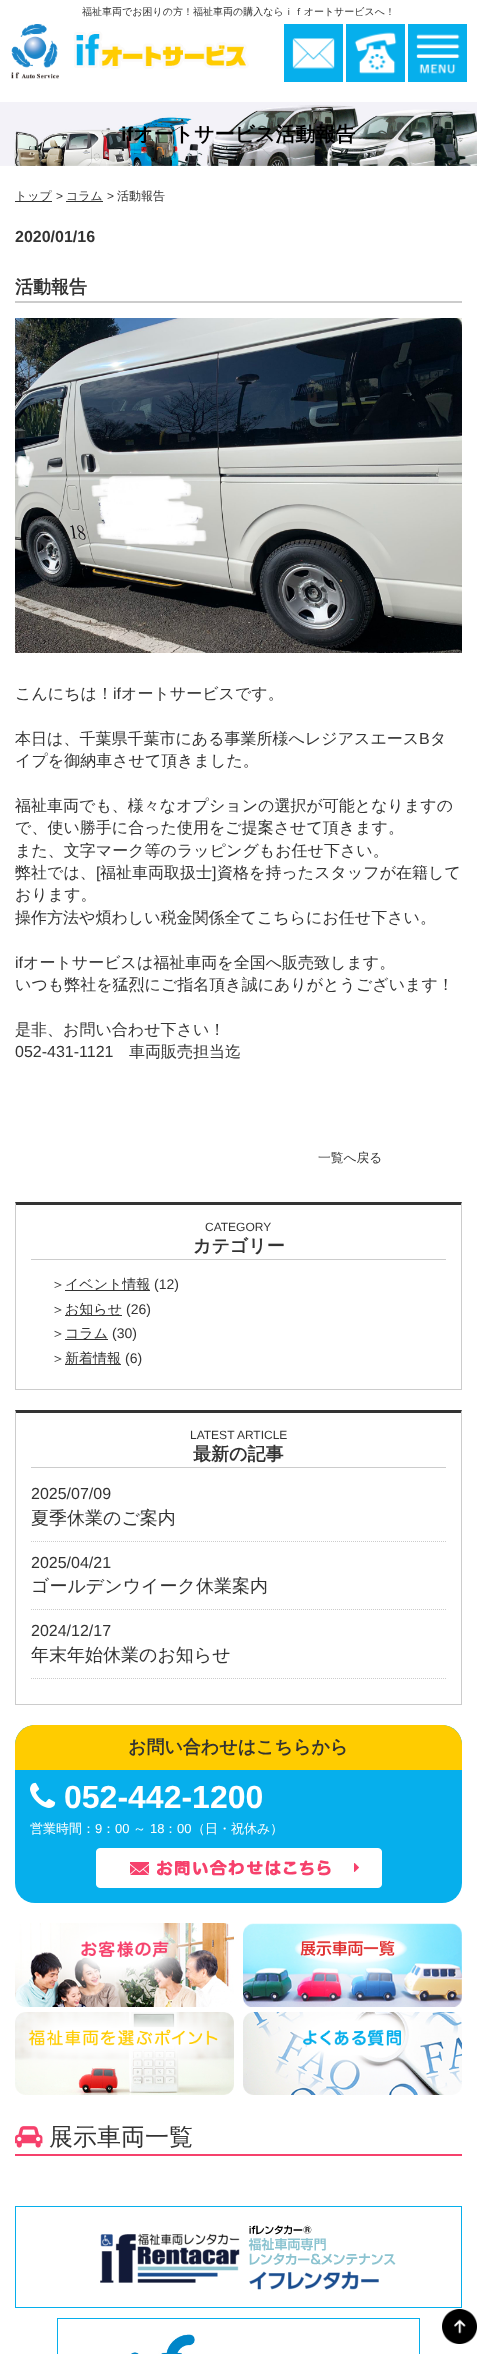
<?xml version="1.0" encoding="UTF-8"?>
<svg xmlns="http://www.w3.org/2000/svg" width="477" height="2354">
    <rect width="100%" height="100%" fill="#FFFFFF"/>
    <text x="82" y="15" font-family="WenQuanYi Zen Hei" font-size="10" font-weight="500" fill="#333333">福祉車両でお困りの方！福祉車両の購入ならｉｆオートサービスへ！</text>
    <image x="11" y="24" width="238" height="55" href="img_01.png"/>
    <image x="284" y="24" width="59" height="58" href="img_02.png"/>
    <image x="346" y="24" width="59" height="58" href="img_03.png"/>
    <image x="408" y="24" width="59" height="58" href="img_04.png"/>
    <image x="0" y="102" width="477" height="64" href="img_05.png"/>
    <text x="121" y="141" font-family="Liberation Sans" font-size="20" font-weight="700" fill="#000000">if</text>
    <text x="133" y="141" font-family="WenQuanYi Zen Hei" font-size="20" font-weight="700" fill="#000000">オートサービス活動報告</text>
    <rect x="15" y="201" width="37" height="1" fill="#333333"/>
    <text x="15" y="200" font-family="WenQuanYi Zen Hei" font-size="12" font-weight="500" fill="#333333">トップ</text>
    <text x="56" y="200" font-family="Liberation Sans" font-size="12" fill="#333333">&gt;</text>
    <rect x="66" y="201" width="37" height="1" fill="#333333"/>
    <text x="66" y="200" font-family="WenQuanYi Zen Hei" font-size="12" font-weight="500" fill="#333333">コラム</text>
    <text x="107" y="200" font-family="Liberation Sans" font-size="12" fill="#333333">&gt;</text>
    <text x="117" y="200" font-family="WenQuanYi Zen Hei" font-size="12" font-weight="500" fill="#333333">活動報告</text>
    <text x="15" y="242" font-family="Liberation Sans" font-size="16" font-weight="700" fill="#333333">2020/01/16</text>
    <rect x="15" y="301" width="447" height="2" fill="#CCCCCC"/>
    <text x="15" y="293" font-family="WenQuanYi Zen Hei" font-size="18" font-weight="700" fill="#333333">活動報告</text>
    <image x="15" y="318" width="447" height="335" href="img_06.png"/>
    <text x="15" y="699" font-family="WenQuanYi Zen Hei" font-size="16" font-weight="500" fill="#333333">こんにちは！</text>
    <text x="113" y="699" font-family="Liberation Sans" font-size="16" fill="#333333">if</text>
    <text x="121" y="699" font-family="WenQuanYi Zen Hei" font-size="16" font-weight="500" fill="#333333">オートサービスです。</text>
    <text x="15" y="744" font-family="WenQuanYi Zen Hei" font-size="16" font-weight="500" fill="#333333">本日は、千葉県千葉市にある事業所様へレジアスエース</text>
    <text x="419" y="744" font-family="Liberation Sans" font-size="16" fill="#333333">B</text>
    <text x="430" y="744" font-family="WenQuanYi Zen Hei" font-size="16" font-weight="500" fill="#333333">タ</text>
    <text x="15" y="766" font-family="WenQuanYi Zen Hei" font-size="16" font-weight="500" fill="#333333">イプを御納車させて頂きました。</text>
    <text font-family="WenQuanYi Zen Hei" font-size="16" font-weight="500" fill="#333333">
        <tspan x="15" y="811">福祉車両でも、様々なオプションの選択が可能となりますの</tspan>
        <tspan x="15" y="833">で、使い勝手に合った使用をご提案させて頂きます。</tspan>
        <tspan x="15" y="856">また、文字マーク等のラッピングもお任せ下さい。</tspan>
        <tspan x="15" y="878">弊社では、</tspan>
    </text>
    <text x="96" y="878" font-family="Liberation Sans" font-size="16" fill="#333333">[</text>
    <text x="100" y="878" font-family="WenQuanYi Zen Hei" font-size="16" font-weight="500" fill="#333333">福祉車両取扱士</text>
    <text x="212" y="878" font-family="Liberation Sans" font-size="16" fill="#333333">]</text>
    <text x="217" y="878" font-family="WenQuanYi Zen Hei" font-size="16" font-weight="500" fill="#333333">資格を持ったスタッフが在籍して</text>
    <text font-family="WenQuanYi Zen Hei" font-size="16" font-weight="500" fill="#333333">
        <tspan x="15" y="900">おります。</tspan>
        <tspan x="15" y="923">操作方法や煩わしい税金関係全てこちらにお任せ下さい。</tspan>
    </text>
    <text x="15" y="968" font-family="Liberation Sans" font-size="16" fill="#333333">if</text>
    <text x="23" y="968" font-family="WenQuanYi Zen Hei" font-size="16" font-weight="500" fill="#333333">オートサービスは福祉車両を全国へ販売致します。</text>
    <text x="15" y="990" font-family="WenQuanYi Zen Hei" font-size="16" font-weight="500" fill="#333333">いつも弊社を猛烈にご指名頂き誠にありがとうございます！</text>
    <text x="15" y="1035" font-family="WenQuanYi Zen Hei" font-size="16" font-weight="500" fill="#333333">是非、お問い合わせ下さい！</text>
    <text x="15" y="1057" font-family="Liberation Sans" font-size="16" fill="#333333">052-431-1121</text>
    <text x="129" y="1057" font-family="WenQuanYi Zen Hei" font-size="16" font-weight="500" fill="#333333">車両販売担当迄</text>
    <text x="318" y="1162" font-family="WenQuanYi Zen Hei" font-size="12.75" font-weight="500" fill="#333333">一覧へ戻る</text>
    <path d="M 15 1202 H 462 L 461 1205 H 16 Z" fill="#333333"/>
    <path d="M 462 1202 V 1390 L 461 1389 V 1205 Z" fill="#CCCCCC"/>
    <rect x="15" y="1389" width="447" height="1" fill="#CCCCCC"/>
    <path d="M 15 1390 V 1202 L 16 1205 V 1389 Z" fill="#CCCCCC"/>
    <rect x="31" y="1259" width="415" height="1" fill="#CCCCCC"/>
    <text x="205" y="1231" font-family="Liberation Sans" font-size="12" fill="#333333">CATEGORY</text>
    <text x="193" y="1252" font-family="WenQuanYi Zen Hei" font-size="18" font-weight="700" fill="#333333">カテゴリー</text>
    <text x="51" y="1289" font-family="WenQuanYi Zen Hei" font-size="14" font-weight="500" fill="#333333">＞</text>
    <rect x="65" y="1290" width="85" height="1" fill="#333333"/>
    <text x="65" y="1289" font-family="WenQuanYi Zen Hei" font-size="14" font-weight="500" fill="#333333">イベント情報</text>
    <text x="154" y="1289" font-family="Liberation Sans" font-size="14" fill="#333333">(12)</text>
    <text x="51" y="1314" font-family="WenQuanYi Zen Hei" font-size="14" font-weight="500" fill="#333333">＞</text>
    <rect x="65" y="1315" width="57" height="1" fill="#333333"/>
    <text x="65" y="1314" font-family="WenQuanYi Zen Hei" font-size="14" font-weight="500" fill="#333333">お知らせ</text>
    <text x="126" y="1314" font-family="Liberation Sans" font-size="14" fill="#333333">(26)</text>
    <text x="51" y="1338" font-family="WenQuanYi Zen Hei" font-size="14" font-weight="500" fill="#333333">＞</text>
    <rect x="65" y="1339" width="43" height="1" fill="#333333"/>
    <text x="65" y="1338" font-family="WenQuanYi Zen Hei" font-size="14" font-weight="500" fill="#333333">コラム</text>
    <text x="112" y="1338" font-family="Liberation Sans" font-size="14" fill="#333333">(30)</text>
    <text x="51" y="1363" font-family="WenQuanYi Zen Hei" font-size="14" font-weight="500" fill="#333333">＞</text>
    <rect x="65" y="1364" width="56" height="1" fill="#333333"/>
    <text x="65" y="1363" font-family="WenQuanYi Zen Hei" font-size="14" font-weight="500" fill="#333333">新着情報</text>
    <text x="125" y="1363" font-family="Liberation Sans" font-size="14" fill="#333333">(6)</text>
    <path d="M 15 1410 H 462 L 461 1413 H 16 Z" fill="#333333"/>
    <path d="M 462 1410 V 1705 L 461 1704 V 1413 Z" fill="#CCCCCC"/>
    <rect x="15" y="1704" width="447" height="1" fill="#CCCCCC"/>
    <path d="M 15 1705 V 1410 L 16 1413 V 1704 Z" fill="#CCCCCC"/>
    <rect x="31" y="1467" width="415" height="1" fill="#CCCCCC"/>
    <text x="190" y="1439" font-family="Liberation Sans" font-size="12" fill="#333333">LATEST ARTICLE</text>
    <text x="193" y="1460" font-family="WenQuanYi Zen Hei" font-size="18" font-weight="700" fill="#333333">最新の記事</text>
    <path d="M 31 1541.5 H 446" fill="none" stroke="#CCCCCC" stroke-dasharray="1 1"/>
    <text x="31" y="1499" font-family="Liberation Sans" font-size="16" fill="#333333">2025/07/09</text>
    <text x="31" y="1524" font-family="WenQuanYi Zen Hei" font-size="18" font-weight="500" fill="#333333">夏季休業のご案内</text>
    <path d="M 31 1609.5 H 446" fill="none" stroke="#CCCCCC" stroke-dasharray="1 1"/>
    <text x="31" y="1568" font-family="Liberation Sans" font-size="16" fill="#333333">2025/04/21</text>
    <text x="31" y="1592" font-family="WenQuanYi Zen Hei" font-size="18" font-weight="500" fill="#333333">ゴールデンウイーク休業案内</text>
    <path d="M 31 1678.5 H 446" fill="none" stroke="#CCCCCC" stroke-dasharray="1 1"/>
    <text x="31" y="1636" font-family="Liberation Sans" font-size="16" fill="#333333">2024/12/17</text>
    <text x="31" y="1661" font-family="WenQuanYi Zen Hei" font-size="18" font-weight="500" fill="#333333">年末年始休業のお知らせ</text>
    <rect x="15" y="1725" width="447" height="178" rx="20" fill="#06AFEC"/>
    <path d="M 35 1725 H 442 C 453 1725 462 1734 462 1745 V 1770 H 15 V 1745 C 15 1734 24 1725 35 1725 Z" fill="#FFCC00"/>
    <text x="128" y="1753" font-family="WenQuanYi Zen Hei" font-size="18" font-weight="700" fill="#333333">お問い合わせはこちらから</text>
    <image x="30" y="1782" width="26" height="26" href="img_07.png"/>
    <text x="64" y="1808" font-family="Liberation Sans" font-size="32" font-weight="700" fill="#FFFFFF">052-442-1200</text>
    <text x="30" y="1833" font-family="WenQuanYi Zen Hei" font-size="13" font-weight="500" fill="#FFFFFF">営業時間：</text>
    <text x="95" y="1833" font-family="Liberation Sans" font-size="13" fill="#FFFFFF">9</text>
    <text x="102" y="1833" font-family="WenQuanYi Zen Hei" font-size="13" font-weight="500" fill="#FFFFFF">：</text>
    <text x="115" y="1833" font-family="Liberation Sans" font-size="13" fill="#FFFFFF">00</text>
    <text x="133" y="1833" font-family="WenQuanYi Zen Hei" font-size="13" font-weight="500" fill="#FFFFFF">～</text>
    <text x="150" y="1833" font-family="Liberation Sans" font-size="13" fill="#FFFFFF">18</text>
    <text x="164" y="1833" font-family="WenQuanYi Zen Hei" font-size="13" font-weight="500" fill="#FFFFFF">：</text>
    <text x="177" y="1833" font-family="Liberation Sans" font-size="13" fill="#FFFFFF">00</text>
    <text x="192" y="1833" font-family="WenQuanYi Zen Hei" font-size="13" font-weight="500" fill="#FFFFFF">（日・祝休み）</text>
    <image x="96" y="1848" width="286" height="40" href="img_08.png"/>
    <image x="15" y="1923" width="219" height="84" href="img_09.png"/>
    <image x="243" y="1923" width="219" height="84" href="img_10.png"/>
    <image x="15" y="2012" width="219" height="83" href="img_11.png"/>
    <image x="243" y="2012" width="219" height="83" href="img_12.png"/>
    <rect x="15" y="2154" width="447" height="2" fill="#F6416C"/>
    <image x="15" y="2126" width="28" height="22" href="img_13.png"/>
    <text x="49" y="2145" font-family="WenQuanYi Zen Hei" font-size="24" font-weight="500" fill="#333333">展示車両一覧</text>
    <rect x="15.5" y="2206.5" width="446" height="101" fill="none" stroke="#06AFEC"/>
    <image x="100" y="2225" width="296" height="65" href="img_14.png"/>
    <rect x="57.5" y="2318.5" width="362" height="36" fill="none" stroke="#06AFEC"/>
    <image x="131" y="2334" width="64" height="20" href="img_15.png"/>
    <image x="442" y="2309" width="35" height="35" href="img_16.png"/>
</svg>
